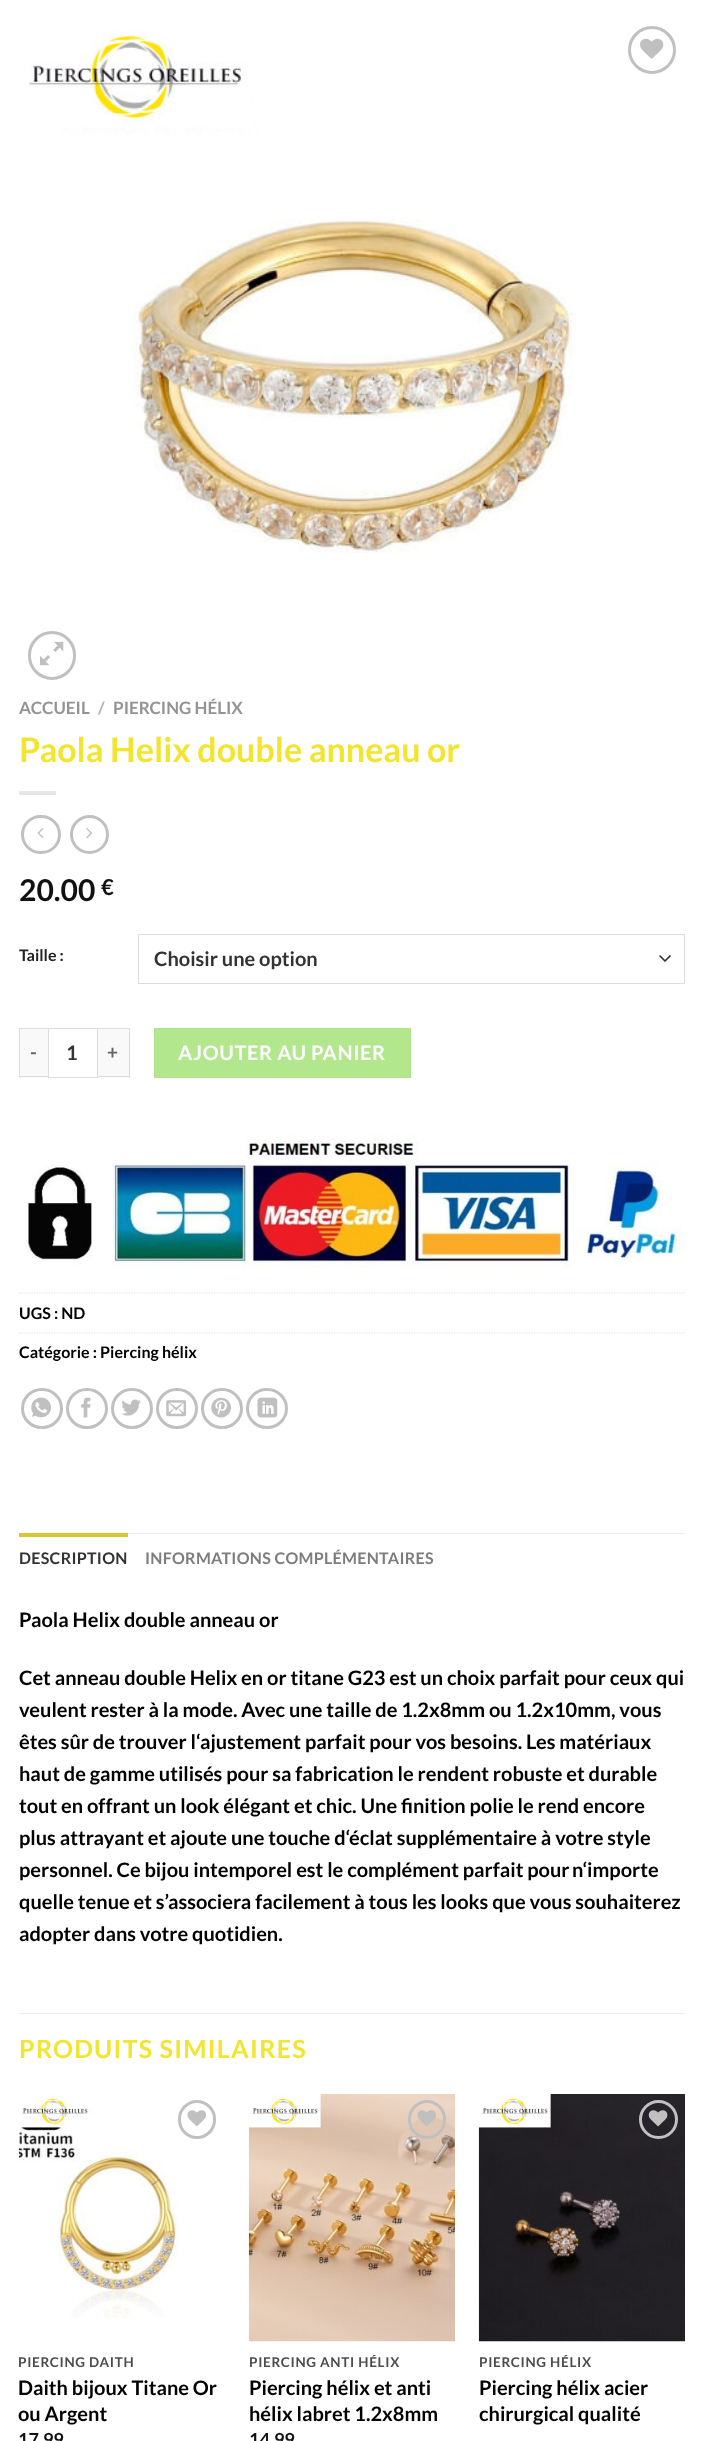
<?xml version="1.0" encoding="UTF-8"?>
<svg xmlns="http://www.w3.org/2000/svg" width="703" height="2441">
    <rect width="100%" height="100%" fill="#FFFFFF"/>
    <image x="29" y="30" width="547" height="523" href="img_01.png"/>
    <circle cx="652" cy="50" r="22.5" fill="none" stroke="#C0C0C0" stroke-width="3"/>
    <image x="640" y="38" width="24" height="21" href="img_02.png"/>
    <rect x="29.5" y="632.5" width="45" height="46" rx="22.5" fill="none" stroke="#C0C0C0" stroke-width="3"/>
    <image x="40" y="641" width="24" height="25" href="img_03.png"/>
    <text x="19" y="714" font-family="Lato" font-size="17" font-weight="700" fill="#949494">ACCUEIL</text>
    <text x="98" y="714" font-family="Lato" font-size="17" font-weight="700" fill="#B2B2B2">/</text>
    <text x="113" y="714" font-family="Lato" font-size="17" font-weight="700" fill="#949494">PIERCING HÉLIX</text>
    <text x="19" y="762" font-family="Lato" font-size="34" font-weight="700" fill="#F2E530">Paola Helix double anneau or</text>
    <rect x="19" y="791" width="37" height="4" fill="#E6E6E6"/>
    <rect x="22.5" y="816.5" width="37" height="36" rx="18" fill="none" stroke="#C0C0C0" stroke-width="3"/>
    <image x="37" y="828" width="7" height="11" href="img_04.png"/>
    <circle cx="89.5" cy="834.5" r="18" fill="none" stroke="#C0C0C0" stroke-width="3"/>
    <image x="86" y="828" width="7" height="11" href="img_05.png"/>
    <text x="19" y="901" font-family="Lato" font-size="30" font-weight="700" fill="#111111">20.00</text>
    <text x="101" y="895" font-family="Lato" font-size="22" font-weight="700" fill="#111111">€</text>
    <text x="19" y="961" font-family="Lato" font-size="16" font-weight="700" fill="#222222">Taille :</text>
    <path d="M 660 956 L 665 961 L 670 956" fill="none" stroke="#333333" stroke-width="1.7" stroke-linecap="round" stroke-linejoin="round"/>
    <rect x="138.5" y="934.5" width="546" height="49" fill="none" stroke="#DDDDDD"/>
    <text x="154" y="966" font-family="Lato" font-size="20" font-weight="700" fill="#333333">Choisir une option</text>
    <rect x="20" y="1029" width="28" height="49" fill="#F9F9F9"/>
    <rect x="19" y="1028" width="29" height="1" fill="#DDDDDD"/>
    <rect x="19" y="1076" width="29" height="1" fill="#DDDDDD"/>
    <rect x="19" y="1028" width="1" height="50" fill="#DDDDDD"/>
    <text x="30" y="1059" font-family="Lato" font-size="19" font-weight="700" letter-spacing="1" fill="#666666">-</text>
    <rect x="48.5" y="1028.5" width="49" height="49" fill="none" stroke="#DDDDDD"/>
    <text x="66" y="1060" font-family="Lato" font-size="20" font-weight="700" fill="#333333">1</text>
    <rect x="98" y="1029" width="31" height="49" fill="#F9F9F9"/>
    <rect x="98" y="1028" width="32" height="1" fill="#DDDDDD"/>
    <rect x="129" y="1028" width="1" height="50" fill="#DDDDDD"/>
    <rect x="98" y="1076" width="32" height="1" fill="#DDDDDD"/>
    <text x="107" y="1059" font-family="Lato" font-size="19" font-weight="700" letter-spacing="1" fill="#666666">+</text>
    <rect x="154.5" y="1028.5" width="256" height="49" fill="#B3E78E" stroke="#AFE18C"/>
    <text x="178" y="1060" font-family="Lato" font-size="20" font-weight="700" letter-spacing="0.6" fill="#FFFFFF">AJOUTER AU PANIER</text>
    <image x="26" y="1134" width="659" height="134" href="img_06.png"/>
    <path d="M 19 1293 H 685" fill="none" stroke="#DDDDDD" stroke-width="1.2" stroke-dasharray="1.25 1.25"/>
    <text x="19" y="1319" font-family="Lato" font-size="16" font-weight="700" fill="#000000">UGS : ND</text>
    <path d="M 19 1333 H 685" fill="none" stroke="#DDDDDD" stroke-width="1.2" stroke-dasharray="1.25 1.25"/>
    <text x="19" y="1358" font-family="Lato" font-size="16" font-weight="700" fill="#000000">Catégorie : Piercing hélix</text>
    <rect x="22.5" y="1389.5" width="39" height="38" rx="19" fill="none" stroke="#C0C0C0" stroke-width="3"/>
    <image x="31" y="1397" width="20" height="21" href="img_07.png"/>
    <rect x="67.5" y="1389.5" width="39" height="38" rx="19" fill="none" stroke="#C0C0C0" stroke-width="3"/>
    <image x="81" y="1397" width="10" height="21" href="img_08.png"/>
    <rect x="112.5" y="1389.5" width="39" height="38" rx="19" fill="none" stroke="#C0C0C0" stroke-width="3"/>
    <image x="121" y="1399" width="20" height="17" href="img_09.png"/>
    <rect x="157.5" y="1389.5" width="39" height="38" rx="19" fill="none" stroke="#C0C0C0" stroke-width="3"/>
    <image x="166" y="1400" width="20" height="17" href="img_10.png"/>
    <rect x="202.5" y="1389.5" width="39" height="38" rx="19" fill="none" stroke="#C0C0C0" stroke-width="3"/>
    <image x="211" y="1397" width="20" height="21" href="img_11.png"/>
    <rect x="247.5" y="1389.5" width="39" height="38" rx="19" fill="none" stroke="#C0C0C0" stroke-width="3"/>
    <image x="257" y="1397" width="21" height="21" href="img_12.png"/>
    <rect x="128" y="1533" width="557" height="1" fill="#ECECEC"/>
    <rect x="19" y="1533" width="109" height="4" fill="#DCC532"/>
    <text x="19" y="1564" font-family="Lato" font-size="16" font-weight="700" letter-spacing="0.3" fill="#333333">DESCRIPTION</text>
    <text x="145" y="1564" font-family="Lato" font-size="16" font-weight="700" letter-spacing="0.3" fill="#7D7D7D">INFORMATIONS COMPLÉMENTAIRES</text>
    <text x="19" y="1627" font-family="Lato" font-size="20" font-weight="700" fill="#000000">Paola Helix double anneau or</text>
    <text font-family="Lato" font-size="20" font-weight="700" fill="#000000">
        <tspan x="19" y="1685">Cet anneau double Helix en or titane G23 est un choix parfait pour ceux qui</tspan>
        <tspan x="19" y="1717">veulent rester à la mode. Avec une taille de 1.2x8mm ou 1.2x10mm, v</tspan>
    </text>
    <text x="630" y="1717" font-family="Lato" font-size="20" font-weight="700" fill="#000000">ous</text>
    <text x="19" y="1749" font-family="Lato" font-size="20" font-weight="700" fill="#000000">êtes sûr de trouver l‘</text>
    <text x="200" y="1749" font-family="Lato" font-size="20" font-weight="700" fill="#000000">ajustement parfait pour v</text>
    <text x="426" y="1749" font-family="Lato" font-size="20" font-weight="700" fill="#000000">os besoins. Les matériaux</text>
    <text font-family="Lato" font-size="20" font-weight="700" fill="#000000">
        <tspan x="19" y="1781">haut de gamme utilisés pour sa fabrication le rendent robuste et durable</tspan>
        <tspan x="19" y="1813">tout en offrant un look élégant et chic. Une finition polie le rend encore</tspan>
        <tspan x="19" y="1845">plus attrayant et ajoute une touche d‘</tspan>
    </text>
    <text x="349" y="1845" font-family="Lato" font-size="20" font-weight="700" fill="#000000">éclat supplémentaire à votre style</text>
    <text x="19" y="1877" font-family="Lato" font-size="20" font-weight="700" fill="#000000">personnel. Ce bijou intemporel est le complément parfait pour</text>
    <text x="572" y="1877" font-family="Lato" font-size="20" font-weight="700" fill="#000000">n‘importe</text>
    <text x="19" y="1909" font-family="Lato" font-size="20" font-weight="700" fill="#000000">quelle tenue et s’</text>
    <text x="168" y="1909" font-family="Lato" font-size="20" font-weight="700" fill="#000000">associera facilement à tous les looks que v</text>
    <text x="540" y="1909" font-family="Lato" font-size="20" font-weight="700" fill="#000000">ous souhaiterez</text>
    <text x="19" y="1941" font-family="Lato" font-size="20" font-weight="700" fill="#000000">adopter dans votre quotidien.</text>
    <rect x="19" y="2013" width="666" height="1" fill="#ECECEC"/>
    <text x="19" y="2058" font-family="Lato" font-size="25" font-weight="700" letter-spacing="1.25" fill="#F2E530">PRODUITS SIMILAIRES</text>
    <image x="18" y="2094" width="161" height="227" href="img_13.png"/>
    <rect x="179.5" y="2101.5" width="35" height="36" rx="17.5" fill="none" stroke="#C0C0C0" stroke-width="3"/>
    <image x="187" y="2110" width="20" height="17" href="img_14.png"/>
    <text x="18" y="2367" font-family="Lato" font-size="13.5" font-weight="700" letter-spacing="0.7" fill="#4D4D4D">PIERCING DAITH</text>
    <text font-family="Lato" font-size="20" font-weight="700" fill="#000000">
        <tspan x="18" y="2395">Daith bijoux Titane Or</tspan>
        <tspan x="18" y="2421">ou Argent</tspan>
    </text>
    <text x="18" y="2446" font-family="Lato" font-size="18" font-weight="700" fill="#111111">17.99</text>
    <image x="248" y="2094" width="207" height="248" href="img_15.png"/>
    <rect x="409.5" y="2101.5" width="35" height="36" rx="17.5" fill="none" stroke="#C0C0C0" stroke-width="3"/>
    <image x="417" y="2110" width="19" height="16" href="img_16.png"/>
    <text x="249" y="2367" font-family="Lato" font-size="13.5" font-weight="700" letter-spacing="0.7" fill="#4D4D4D">PIERCING ANTI HÉLIX</text>
    <text font-family="Lato" font-size="20" font-weight="700" fill="#000000">
        <tspan x="249" y="2395">Piercing hélix et anti</tspan>
        <tspan x="249" y="2421">hélix labret 1.2x8mm</tspan>
    </text>
    <text x="249" y="2446" font-family="Lato" font-size="18" font-weight="700" fill="#111111">14.99</text>
    <image x="478" y="2094" width="207" height="248" href="img_17.png"/>
    <circle cx="658.5" cy="2119.5" r="18" fill="none" stroke="#C0C0C0" stroke-width="3"/>
    <image x="648" y="2110" width="20" height="17" href="img_18.png"/>
    <text x="479" y="2367" font-family="Lato" font-size="13.5" font-weight="700" letter-spacing="0.7" fill="#4D4D4D">PIERCING HÉLIX</text>
    <text font-family="Lato" font-size="20" font-weight="700" fill="#000000">
        <tspan x="479" y="2395">Piercing hélix acier</tspan>
        <tspan x="479" y="2421">chirurgical qualité</tspan>
    </text>
</svg>
